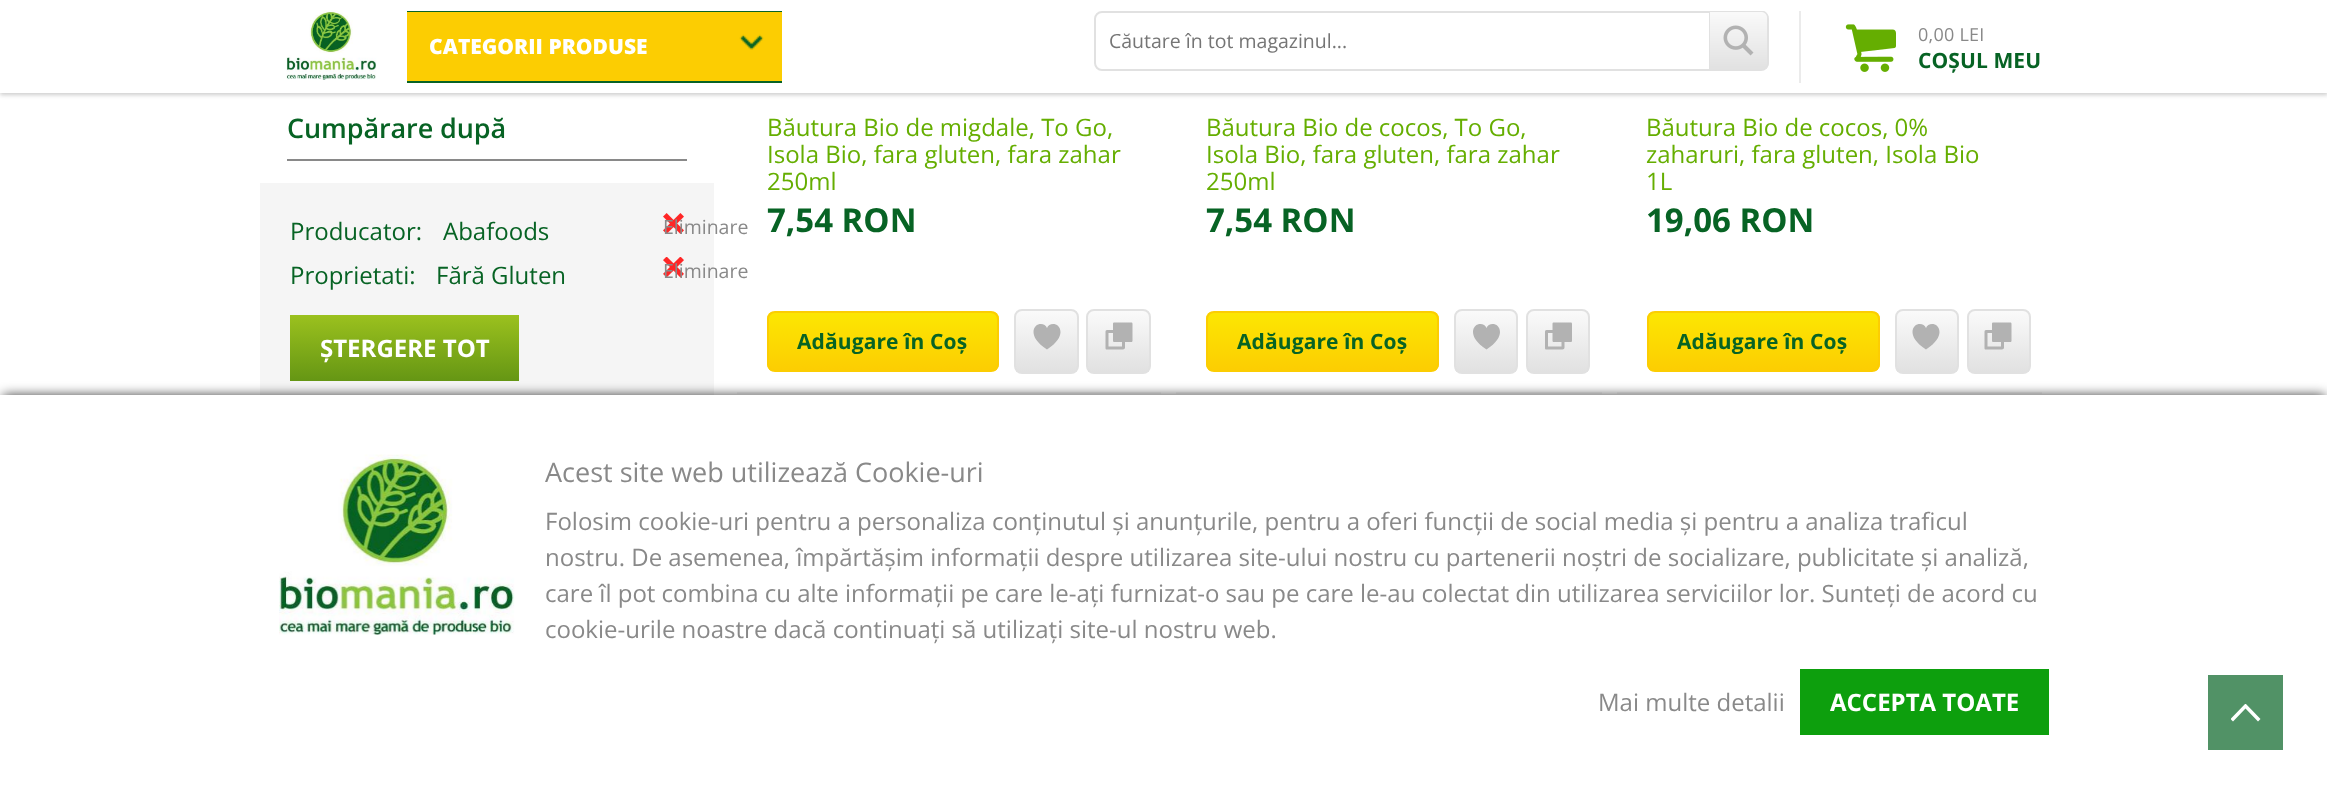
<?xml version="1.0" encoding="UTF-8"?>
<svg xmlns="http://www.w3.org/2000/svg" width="2327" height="795">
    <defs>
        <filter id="blur1" x="-50%" y="-200%" width="200%" height="500%"><feGaussianBlur stdDeviation="2"/></filter>
        <linearGradient id="g1" gradientUnits="userSpaceOnUse" x1="404" y1="315" x2="404" y2="381"><stop offset="0" stop-color="#9BC11E"/><stop offset="1" stop-color="#659614"/></linearGradient>
        <clipPath id="clip1"><rect x="767" y="311" width="232" height="61" rx="8"/></clipPath>
        <linearGradient id="g2" gradientUnits="userSpaceOnUse" x1="883" y1="312" x2="883" y2="371"><stop offset="0" stop-color="#FCE702"/><stop offset="1" stop-color="#FCCD02"/></linearGradient>
        <clipPath id="clip2"><rect x="1014" y="309" width="65" height="65" rx="8"/></clipPath>
        <linearGradient id="g3" gradientUnits="userSpaceOnUse" x1="1046" y1="311" x2="1046" y2="372"><stop offset="0" stop-color="#FAFAFA"/><stop offset="1" stop-color="#E1E1E1"/></linearGradient>
        <clipPath id="clip3"><rect x="1086" y="309" width="65" height="65" rx="8"/></clipPath>
        <linearGradient id="g4" gradientUnits="userSpaceOnUse" x1="1118" y1="311" x2="1118" y2="372"><stop offset="0" stop-color="#FAFAFA"/><stop offset="1" stop-color="#E1E1E1"/></linearGradient>
        <clipPath id="clip4"><rect x="1206" y="311" width="233" height="61" rx="8"/></clipPath>
        <linearGradient id="g5" gradientUnits="userSpaceOnUse" x1="1322" y1="312" x2="1322" y2="371"><stop offset="0" stop-color="#FCE702"/><stop offset="1" stop-color="#FCCD02"/></linearGradient>
        <clipPath id="clip5"><rect x="1454" y="309" width="64" height="65" rx="8"/></clipPath>
        <linearGradient id="g6" gradientUnits="userSpaceOnUse" x1="1486" y1="311" x2="1486" y2="372"><stop offset="0" stop-color="#FAFAFA"/><stop offset="1" stop-color="#E1E1E1"/></linearGradient>
        <clipPath id="clip6"><rect x="1526" y="309" width="64" height="65" rx="8"/></clipPath>
        <linearGradient id="g7" gradientUnits="userSpaceOnUse" x1="1558" y1="311" x2="1558" y2="372"><stop offset="0" stop-color="#FAFAFA"/><stop offset="1" stop-color="#E1E1E1"/></linearGradient>
        <clipPath id="clip7"><rect x="1647" y="311" width="233" height="61" rx="8"/></clipPath>
        <linearGradient id="g8" gradientUnits="userSpaceOnUse" x1="1763" y1="312" x2="1763" y2="371"><stop offset="0" stop-color="#FCE702"/><stop offset="1" stop-color="#FCCD02"/></linearGradient>
        <clipPath id="clip8"><rect x="1895" y="309" width="64" height="65" rx="8"/></clipPath>
        <linearGradient id="g9" gradientUnits="userSpaceOnUse" x1="1927" y1="311" x2="1927" y2="372"><stop offset="0" stop-color="#FAFAFA"/><stop offset="1" stop-color="#E1E1E1"/></linearGradient>
        <clipPath id="clip9"><rect x="1967" y="309" width="64" height="65" rx="8"/></clipPath>
        <linearGradient id="g10" gradientUnits="userSpaceOnUse" x1="1999" y1="311" x2="1999" y2="372"><stop offset="0" stop-color="#FAFAFA"/><stop offset="1" stop-color="#E1E1E1"/></linearGradient>
        <filter id="blur2" x="-50%" y="-200%" width="200%" height="500%"><feGaussianBlur stdDeviation="6"/></filter>
        <clipPath id="clip10"><rect x="2231" y="704" width="30" height="18"/></clipPath>
    </defs>
    <rect width="100%" height="100%" fill="#FFFFFF"/>
    <rect x="0" y="2" width="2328" height="93" fill="#000000" fill-opacity="0.2" filter="url(#blur1)"/>
    <rect x="0" y="0" width="2327" height="93" fill="#FFFFFF"/>
    <image x="286" y="10" width="91" height="70" href="img_01.png"/>
    <rect x="407" y="11" width="375" height="72" fill="#076324"/>
    <rect x="407" y="12" width="375" height="69" fill="#FCCD02"/>
    <text x="429" y="54" font-family="Open Sans" font-size="21" font-weight="800" fill="#FFFFFF">CATEGORII PRODUSE</text>
    <image x="739" y="34" width="25" height="16" href="img_02.png"/>
    <rect x="1799" y="11" width="2" height="72" fill="#EBEBEB"/>
    <rect x="1095" y="12" width="673" height="58" rx="7" fill="none" stroke="#E1E1E1" stroke-width="2"/>
    <text x="1109" y="48" font-family="Open Sans" font-size="19.5" fill="#757575">Căutare în tot magazinul...</text>
    <image x="1709" y="11" width="60" height="58" href="img_03.png"/>
    <image x="1845" y="24" width="51" height="48" href="img_04.png"/>
    <text x="1918" y="41" font-family="Open Sans" font-size="18" letter-spacing="0.25" fill="#898989">0,00 LEI</text>
    <text x="1918" y="68" font-family="Open Sans" font-size="21" font-weight="700" letter-spacing="0.1" fill="#076324">COȘUL MEU</text>
    <rect x="287" y="159" width="400" height="2" fill="#898989"/>
    <text x="287" y="138" font-family="Open Sans" font-size="27" font-weight="600" letter-spacing="-0.1" fill="#076324">Cumpărare după</text>
    <rect x="260" y="183" width="454" height="212" fill="#F5F5F5"/>
    <text x="290" y="240" font-family="Open Sans" font-size="24" fill="#076324">Producator:</text>
    <text x="443" y="240" font-family="Open Sans" font-size="24" fill="#076324">Abafoods</text>
    <image x="663" y="213" width="21" height="21" href="img_05.png"/>
    <text x="663" y="234" font-family="Open Sans" font-size="19.5" fill="#898989">Eliminare</text>
    <text x="290" y="284" font-family="Open Sans" font-size="24" fill="#076324">Proprietati:</text>
    <text x="436" y="284" font-family="Open Sans" font-size="24" fill="#076324">Fără Gluten</text>
    <image x="663" y="257" width="21" height="21" href="img_06.png"/>
    <text x="663" y="278" font-family="Open Sans" font-size="19.5" fill="#898989">Eliminare</text>
    <rect x="290" y="315" width="229" height="66" fill="url(#g1)"/>
    <text x="320" y="357" font-family="Open Sans" font-size="24" font-weight="700" fill="#FFFFFF">ȘTERGERE TOT</text>
    <rect x="737" y="392" width="424" height="2" fill="#F5F5F5"/>
    <text font-family="Open Sans" font-size="24" fill="#65AE01">
        <tspan x="767" y="136">Băutura Bio de migdale, To Go,</tspan>
        <tspan x="767" y="163">Isola Bio, fara gluten, fara zahar</tspan>
        <tspan x="767" y="190">250ml</tspan>
    </text>
    <text x="767" y="232" font-family="Open Sans" font-size="33" font-weight="700" fill="#076324">7,54 RON</text>
    <g clip-path="url(#clip1)">
        <rect x="767" y="312" width="232" height="59" fill="url(#g2)"/>
    </g>
    <rect x="768" y="312" width="230" height="59" rx="7" fill="none" stroke="#FCCD02" stroke-width="2"/>
    <text x="797" y="349" font-family="Open Sans" font-size="21" font-weight="700" letter-spacing="0.1" fill="#076324">Adăugare în Coș</text>
    <g clip-path="url(#clip2)">
        <rect x="1016" y="311" width="61" height="61" fill="url(#g3)"/>
    </g>
    <rect x="1015" y="310" width="63" height="63" rx="7" fill="none" stroke="#E1E1E1" stroke-width="2"/>
    <image x="1033" y="324" width="28" height="26" href="img_07.png"/>
    <g clip-path="url(#clip3)">
        <rect x="1088" y="311" width="61" height="61" fill="url(#g4)"/>
    </g>
    <rect x="1087" y="310" width="63" height="63" rx="7" fill="none" stroke="#E1E1E1" stroke-width="2"/>
    <image x="1105" y="322" width="28" height="28" href="img_08.png"/>
    <rect x="1176" y="392" width="426" height="2" fill="#F5F5F5"/>
    <text font-family="Open Sans" font-size="24" fill="#65AE01">
        <tspan x="1206" y="136">Băutura Bio de cocos, To Go,</tspan>
        <tspan x="1206" y="163">Isola Bio, fara gluten, fara zahar</tspan>
        <tspan x="1206" y="190">250ml</tspan>
    </text>
    <text x="1206" y="232" font-family="Open Sans" font-size="33" font-weight="700" fill="#076324">7,54 RON</text>
    <g clip-path="url(#clip4)">
        <rect x="1206" y="312" width="233" height="59" fill="url(#g5)"/>
    </g>
    <rect x="1207" y="312" width="231" height="59" rx="7" fill="none" stroke="#FCCD02" stroke-width="2"/>
    <text x="1237" y="349" font-family="Open Sans" font-size="21" font-weight="700" letter-spacing="0.1" fill="#076324">Adăugare în Coș</text>
    <g clip-path="url(#clip5)">
        <rect x="1455" y="311" width="62" height="61" fill="url(#g6)"/>
    </g>
    <rect x="1455" y="310" width="62" height="63" rx="7" fill="none" stroke="#E1E1E1" stroke-width="2"/>
    <image x="1473" y="324" width="27" height="26" href="img_09.png"/>
    <g clip-path="url(#clip6)">
        <rect x="1527" y="311" width="62" height="61" fill="url(#g7)"/>
    </g>
    <rect x="1527" y="310" width="62" height="63" rx="7" fill="none" stroke="#E1E1E1" stroke-width="2"/>
    <image x="1545" y="322" width="27" height="28" href="img_10.png"/>
    <rect x="1617" y="392" width="425" height="2" fill="#F5F5F5"/>
    <text font-family="Open Sans" font-size="24" fill="#65AE01">
        <tspan x="1646" y="136">Băutura Bio de cocos, 0%</tspan>
        <tspan x="1646" y="163">zaharuri, fara gluten, Isola Bio</tspan>
        <tspan x="1646" y="190">1L</tspan>
    </text>
    <text x="1646" y="232" font-family="Open Sans" font-size="33" font-weight="700" fill="#076324">19,06 RON</text>
    <g clip-path="url(#clip7)">
        <rect x="1647" y="312" width="233" height="59" fill="url(#g8)"/>
    </g>
    <rect x="1648" y="312" width="231" height="59" rx="7" fill="none" stroke="#FCCD02" stroke-width="2"/>
    <text x="1677" y="349" font-family="Open Sans" font-size="21" font-weight="700" letter-spacing="0.1" fill="#076324">Adăugare în Coș</text>
    <g clip-path="url(#clip8)">
        <rect x="1896" y="311" width="62" height="61" fill="url(#g9)"/>
    </g>
    <rect x="1896" y="310" width="62" height="63" rx="7" fill="none" stroke="#E1E1E1" stroke-width="2"/>
    <image x="1912" y="324" width="28" height="26" href="img_07.png"/>
    <g clip-path="url(#clip9)">
        <rect x="1968" y="311" width="62" height="61" fill="url(#g10)"/>
    </g>
    <rect x="1968" y="310" width="62" height="63" rx="7" fill="none" stroke="#E1E1E1" stroke-width="2"/>
    <image x="1984" y="322" width="28" height="28" href="img_08.png"/>
    <rect x="3" y="395" width="2322" height="394" fill="#000000" fill-opacity="0.75" filter="url(#blur2)"/>
    <rect x="0" y="395" width="2327" height="400" fill="#FFFFFF"/>
    <image x="279" y="454" width="236" height="181" href="img_11.png"/>
    <text x="545" y="482" font-family="Open Sans" font-size="27" fill="#898989">Acest site web utilizează Cookie-uri</text>
    <text font-family="Open Sans" font-size="24" fill="#898989">
        <tspan x="545" y="530">Folosim cookie-uri pentru a personaliza conținutul și anunțurile, pentru a oferi funcții de social media și pentru a analiza traficul</tspan>
        <tspan x="545" y="566">nostru. De asemenea, împărtășim informații despre utilizarea site-ului nostru cu partenerii noștri de socializare, publicitate și analiză,</tspan>
        <tspan x="545" y="602">care îl pot combina cu alte informații pe care le-ați furnizat-o sau pe care le-au colectat din utilizarea serviciilor lor. Sunteți de acord cu</tspan>
        <tspan x="545" y="638">cookie-urile noastre dacă continuați să utilizați site-ul nostru web.</tspan>
    </text>
    <text x="1598" y="711" font-family="Open Sans" font-size="24" fill="#898989">Mai multe detalii</text>
    <rect x="1800" y="669" width="249" height="66" fill="#0D9F0D"/>
    <text x="1830" y="711" font-family="Open Sans" font-size="24" font-weight="700" fill="#FFFFFF">ACCEPTA TOATE</text>
    <rect x="2208" y="675" width="75" height="75" fill="#519266"/>
    <g clip-path="url(#clip10)">
        <path d="M 2230.5 719 L 2233 721.5 L 2245.5 708.5 L 2258 721.5 L 2260.5 719 L 2245.5 703.5 Z" fill="#FFFFFF"/>
    </g>
</svg>
